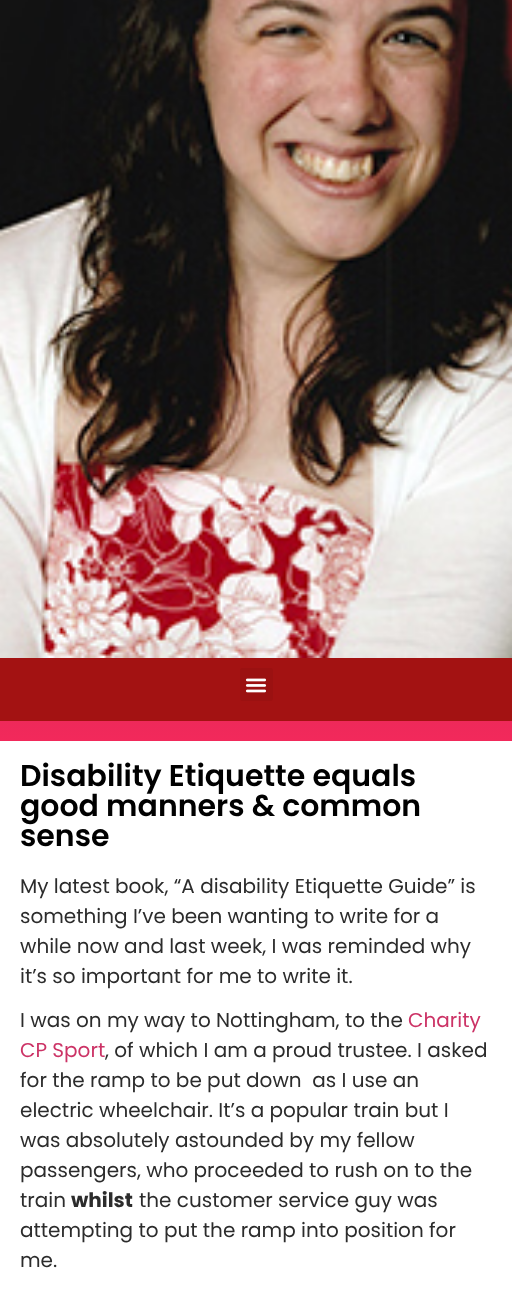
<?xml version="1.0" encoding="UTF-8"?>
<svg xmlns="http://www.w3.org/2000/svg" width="512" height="1293">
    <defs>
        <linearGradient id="g1" gradientUnits="userSpaceOnUse" x1="256" y1="-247" x2="256" y2="741"><stop offset="0" stop-color="#2C2C2C"/><stop offset="1" stop-color="#F2295B"/></linearGradient>
    </defs>
    <rect width="100%" height="100%" fill="#FFFFFF"/>
    <rect x="0" y="721" width="512" height="20" fill="url(#g1)"/>
    <image x="0" y="0" width="512" height="658" href="img_01.png"/>
    <rect x="0" y="658" width="512" height="63" fill="#A31212"/>
    <rect x="240" y="668" width="33" height="33" rx="3" fill="#9B1111"/>
    <image x="245" y="678" width="22" height="15" href="img_02.png"/>
    <text font-family="Poppins" font-size="30" font-weight="600" fill="#000000">
        <tspan x="20" y="786">Disability Etiquette equals</tspan>
        <tspan x="20" y="816">good manners &amp; common</tspan>
        <tspan x="20" y="846">sense</tspan>
    </text>
    <text font-family="Poppins" font-size="20" fill="#2C2C2C">
        <tspan x="20" y="893">My latest book, “A disability Etiquette Guide” is</tspan>
        <tspan x="20" y="923">something I’ve been wanting to write for a</tspan>
        <tspan x="20" y="953">while now and last week, I was reminded why</tspan>
        <tspan x="20" y="983">it’s so important for me to write it.</tspan>
    </text>
    <text x="20" y="1027" font-family="Poppins" font-size="20" fill="#2C2C2C">I was on my way to Nottingham, to the</text>
    <text x="408" y="1027" font-family="Poppins" font-size="20" fill="#CC3366">Charity</text>
    <text x="20" y="1057" font-family="Poppins" font-size="20" fill="#CC3366">CP Sport</text>
    <text x="105" y="1057" font-family="Poppins" font-size="20" fill="#2C2C2C">, of which I am a proud trustee. I asked</text>
    <text font-family="Poppins" font-size="20" fill="#2C2C2C" xml:space="preserve"><tspan x="20" y="1087">for the ramp to be put down  as I use an</tspan><tspan x="20" y="1117">electric wheelchair. It’s a popular train but I</tspan><tspan x="20" y="1147">was absolutely astounded by my fellow</tspan><tspan x="20" y="1177">passengers, who proceeded to rush on to the</tspan><tspan x="20" y="1207">train</tspan></text>
    <text x="71" y="1207" font-family="Poppins" font-size="20" font-weight="700" fill="#2C2C2C">whilst</text>
    <text x="139" y="1207" font-family="Poppins" font-size="20" fill="#2C2C2C">the customer service guy was</text>
    <text font-family="Poppins" font-size="20" fill="#2C2C2C">
        <tspan x="20" y="1237">attempting to put the ramp into position for</tspan>
        <tspan x="20" y="1267">me.</tspan>
    </text>
</svg>
